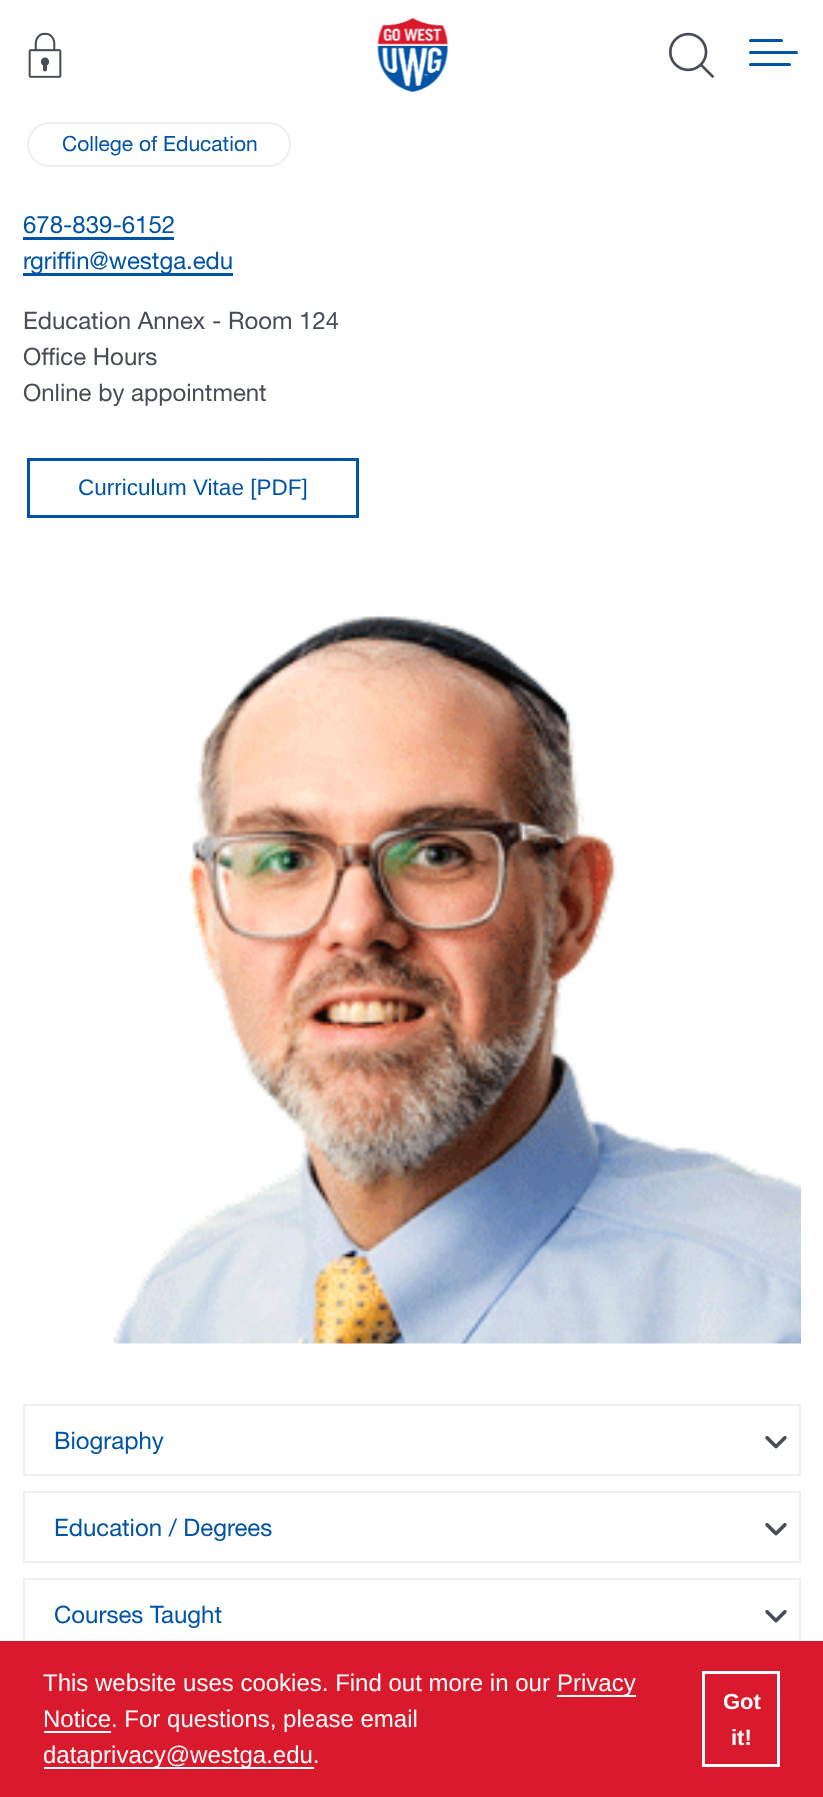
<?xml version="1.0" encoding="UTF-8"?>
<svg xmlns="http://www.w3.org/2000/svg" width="823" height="1797">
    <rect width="100%" height="100%" fill="#FFFFFF"/>
    <image x="28" y="32" width="34" height="46" href="img_01.png"/>
    <image x="377" y="17" width="72" height="76" href="img_02.png"/>
    <image x="669" y="32" width="45" height="46" href="img_03.png"/>
    <rect x="749" y="39" width="34" height="3" rx="1.5" fill="#0054A6"/>
    <rect x="749" y="51" width="49" height="3" rx="1.5" fill="#0054A6"/>
    <rect x="749" y="63" width="42" height="3" rx="1.5" fill="#0054A6"/>
    <rect x="28" y="123" width="262" height="43" rx="21.5" fill="none" stroke="#EDEFF0" stroke-width="2"/>
    <text x="62" y="151" font-family="Helvetica Neue" font-size="21" fill="#0054A6">College of Education</text>
    <text x="23" y="233" font-family="Helvetica Neue" font-size="24" fill="#0054A6">678-839-6152</text>
    <rect x="23" y="237" width="151" height="3" fill="#0054A6"/>
    <text x="23" y="269" font-family="Helvetica Neue" font-size="24" fill="#0054A6">r</text>
    <rect x="23" y="273" width="210" height="3" fill="#0054A6"/>
    <text x="30" y="269" font-family="Helvetica Neue" font-size="24" fill="#0054A6">griffin@westga.edu</text>
    <text font-family="Helvetica Neue" font-size="24" fill="#474C55">
        <tspan x="23" y="329">Education Annex - Room 124</tspan>
        <tspan x="23" y="365">Office Hours</tspan>
        <tspan x="23" y="401">Online by appointment</tspan>
    </text>
    <rect x="28.5" y="459.5" width="329" height="57" fill="none" stroke="#0054A6" stroke-width="3"/>
    <text x="78" y="495" font-family="Liberation Sans" font-size="22.5" fill="#0054A6">Curriculum Vitae [PDF]</text>
    <image x="112" y="615" width="689" height="729" href="img_04.png"/>
    <rect x="24" y="1405" width="776" height="70" fill="none" stroke="#EDEFF0" stroke-width="2"/>
    <text x="54" y="1449" font-family="Helvetica Neue" font-size="24" fill="#0054A6">Biography</text>
    <image x="765" y="1436" width="22" height="13" href="img_05.png"/>
    <rect x="24" y="1492" width="776" height="70" fill="none" stroke="#EDEFF0" stroke-width="2"/>
    <text x="54" y="1536" font-family="Helvetica Neue" font-size="24" fill="#0054A6">Education / Degrees</text>
    <image x="765" y="1523" width="22" height="13" href="img_05.png"/>
    <rect x="24" y="1579" width="776" height="70" fill="none" stroke="#EDEFF0" stroke-width="2"/>
    <text x="54" y="1623" font-family="Helvetica Neue" font-size="24" fill="#0054A6">Courses Taught</text>
    <image x="765" y="1610" width="22" height="13" href="img_05.png"/>
    <rect x="0" y="1641" width="823" height="156" fill="#D9192C"/>
    <text x="43" y="1691" font-family="Liberation Sans" font-size="24" fill="#FFFFFF">This website uses cookies. Find out more in our</text>
    <rect x="557" y="1695" width="79" height="2" fill="#FFFFFF"/>
    <text x="557" y="1691" font-family="Liberation Sans" font-size="24" fill="#FFFFFF">Privacy</text>
    <rect x="44" y="1731" width="67" height="2" fill="#FFFFFF"/>
    <text x="43" y="1727" font-family="Liberation Sans" font-size="24" fill="#FFFFFF">Notice. For questions, please email</text>
    <rect x="44" y="1767" width="270" height="2" fill="#FFFFFF"/>
    <text x="43" y="1763" font-family="Liberation Sans" font-size="24" fill="#FFFFFF">dataprivacy@westga.edu.</text>
    <rect x="703.5" y="1672.5" width="75" height="93" fill="none" stroke="#FFFFFF" stroke-width="3"/>
    <text x="723" y="1709" font-family="Liberation Sans" font-size="22" font-weight="700" fill="#FFFFFF">Got</text>
    <text x="731" y="1745" font-family="Liberation Sans" font-size="22" font-weight="700" fill="#FFFFFF">it!</text>
</svg>
